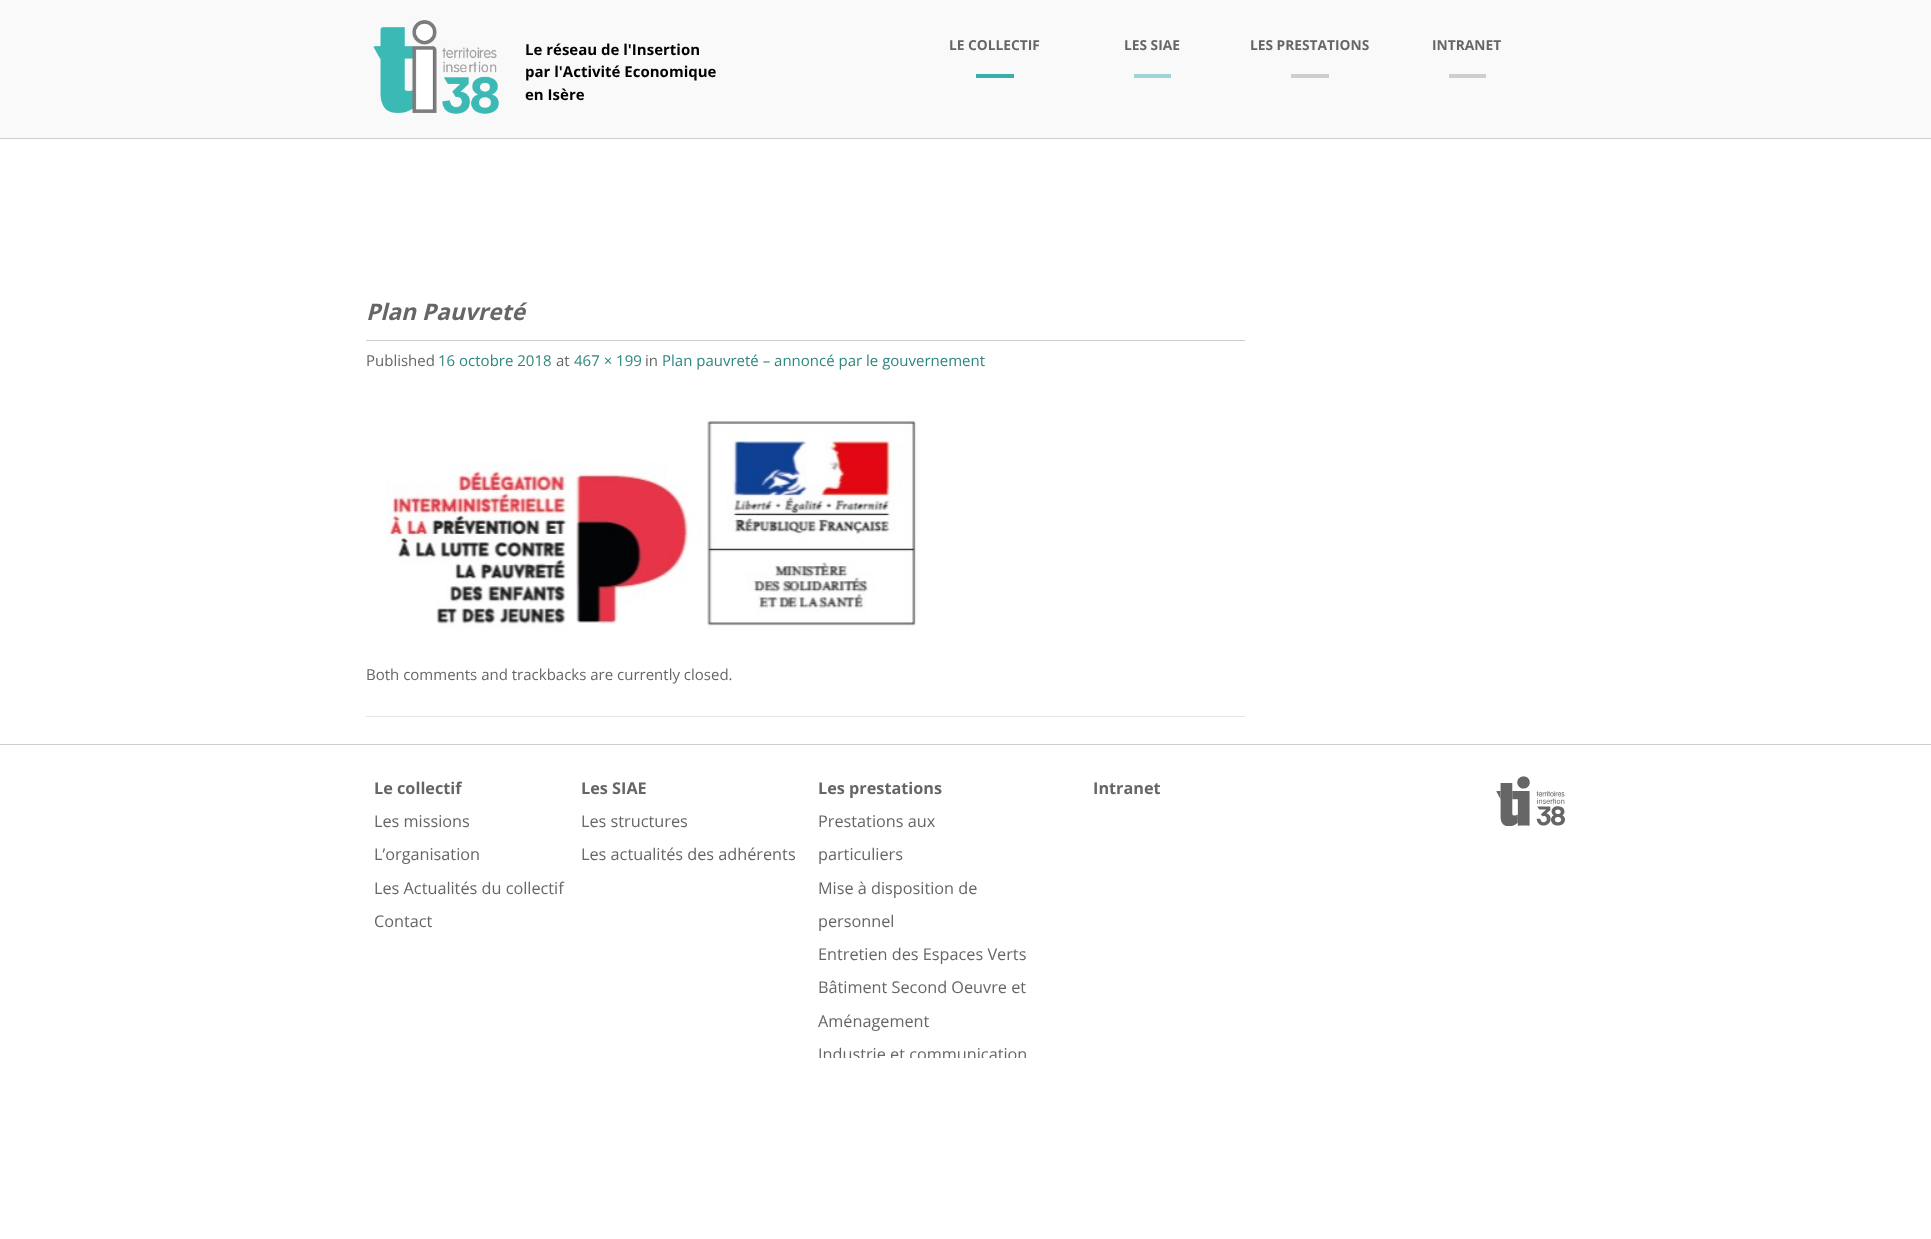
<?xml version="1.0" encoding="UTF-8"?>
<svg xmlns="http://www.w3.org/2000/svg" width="1931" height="1239">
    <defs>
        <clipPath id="clip1"><rect x="0" y="0" width="1931" height="1058"/></clipPath>
    </defs>
    <rect width="100%" height="100%" fill="#FFFFFF"/>
    <rect x="0" y="0" width="1931" height="138" fill="#F9F9F9"/>
    <rect x="0" y="138" width="1931" height="1" fill="#CECECE"/>
    <image x="373" y="20" width="126" height="94" href="img_01.png"/>
    <text font-family="Open Sans" font-size="15" font-weight="700" fill="#000000">
        <tspan x="525" y="55">Le réseau de l'Insertion</tspan>
        <tspan x="525" y="77">par l'Activité Economique</tspan>
        <tspan x="525" y="100">en Isère</tspan>
    </text>
    <text x="949" y="50" font-family="Open Sans" font-size="13.75" font-weight="700" fill="#666666">LE COLLECTIF</text>
    <rect x="976" y="74" width="38" height="4" fill="#37AFAC"/>
    <text x="1124" y="50" font-family="Open Sans" font-size="13.75" font-weight="700" fill="#666666">LES SIAE</text>
    <rect x="1134" y="74" width="37" height="4" fill="#9FD5D4"/>
    <text x="1250" y="50" font-family="Open Sans" font-size="13.75" font-weight="700" fill="#666666">LES PRESTATIONS</text>
    <rect x="1291" y="74" width="38" height="4" fill="#CFCECE"/>
    <text x="1432" y="50" font-family="Open Sans" font-size="13.75" font-weight="700" fill="#666666">INTRANET</text>
    <rect x="1449" y="74" width="37" height="4" fill="#CFCECE"/>
    <rect x="366" y="716" width="879" height="1" fill="#E6E6E6"/>
    <rect x="366" y="340" width="879" height="1" fill="#CECECE"/>
    <text x="366" y="320" font-family="Open Sans" font-size="22.75" font-weight="700" font-style="italic" fill="#666666">Plan Pauvreté</text>
    <text x="366" y="366" font-family="Open Sans" font-size="15" fill="#666666">Published</text>
    <text x="438" y="366" font-family="Open Sans" font-size="15" fill="#2D877E">16 octobre 2018</text>
    <text x="556" y="366" font-family="Open Sans" font-size="15" fill="#666666">at</text>
    <text x="574" y="366" font-family="Open Sans" font-size="15" fill="#2D877E">467 × 199</text>
    <text x="645" y="366" font-family="Open Sans" font-size="15" fill="#666666">in</text>
    <text x="662" y="366" font-family="Open Sans" font-size="15" fill="#2D877E">Plan pauvreté – annoncé par le gouvernement</text>
    <image x="386" y="415" width="531" height="215" href="img_02.png"/>
    <text x="366" y="680" font-family="Open Sans" font-size="15" fill="#666666">Both comments and trackbacks are currently closed.</text>
    <rect x="0" y="744" width="1931" height="1" fill="#CECECE"/>
    <text x="374" y="794" font-family="'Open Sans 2'" font-size="16.25" font-weight="700" fill="#666666">Le collectif</text>
    <text x="374" y="827" font-family="Open Sans" font-size="16.25" fill="#666666">Les missions</text>
    <text x="374" y="860" font-family="Open Sans" font-size="16.25" fill="#666666">L’organisation</text>
    <text x="374" y="894" font-family="Open Sans" font-size="16.25" fill="#666666">Les Actualités du collectif</text>
    <text x="374" y="927" font-family="Open Sans" font-size="16.25" fill="#666666">Contact</text>
    <text x="581" y="794" font-family="'Open Sans 2'" font-size="16.25" font-weight="700" fill="#666666">Les SIAE</text>
    <text x="581" y="827" font-family="Open Sans" font-size="16.25" fill="#666666">Les structures</text>
    <text x="581" y="860" font-family="Open Sans" font-size="16.25" fill="#666666">Les actualités des adhérents</text>
    <text x="818" y="794" font-family="'Open Sans 2'" font-size="16.25" font-weight="700" fill="#666666">Les prestations</text>
    <text x="818" y="827" font-family="Open Sans" font-size="16.25" fill="#666666">Prestations aux</text>
    <text x="818" y="860" font-family="Open Sans" font-size="16.25" fill="#666666">particuliers</text>
    <text x="818" y="894" font-family="Open Sans" font-size="16.25" fill="#666666">Mise à disposition de</text>
    <text x="818" y="927" font-family="Open Sans" font-size="16.25" fill="#666666">personnel</text>
    <text x="818" y="960" font-family="Open Sans" font-size="16.25" fill="#666666">Entretien des Espaces Verts</text>
    <text x="818" y="993" font-family="Open Sans" font-size="16.25" fill="#666666">Bâtiment Second Oeuvre et</text>
    <text x="818" y="1027" font-family="Open Sans" font-size="16.25" fill="#666666">Aménagement</text>
    <g clip-path="url(#clip1)">
        <text x="818" y="1060" font-family="Open Sans" font-size="16.25" fill="#666666">Industrie et communication</text>
    </g>
    <text x="1093" y="794" font-family="'Open Sans 2'" font-size="16.25" font-weight="700" fill="#666666">Intranet</text>
    <image x="1496" y="776" width="69" height="50" href="img_03.png"/>
</svg>
